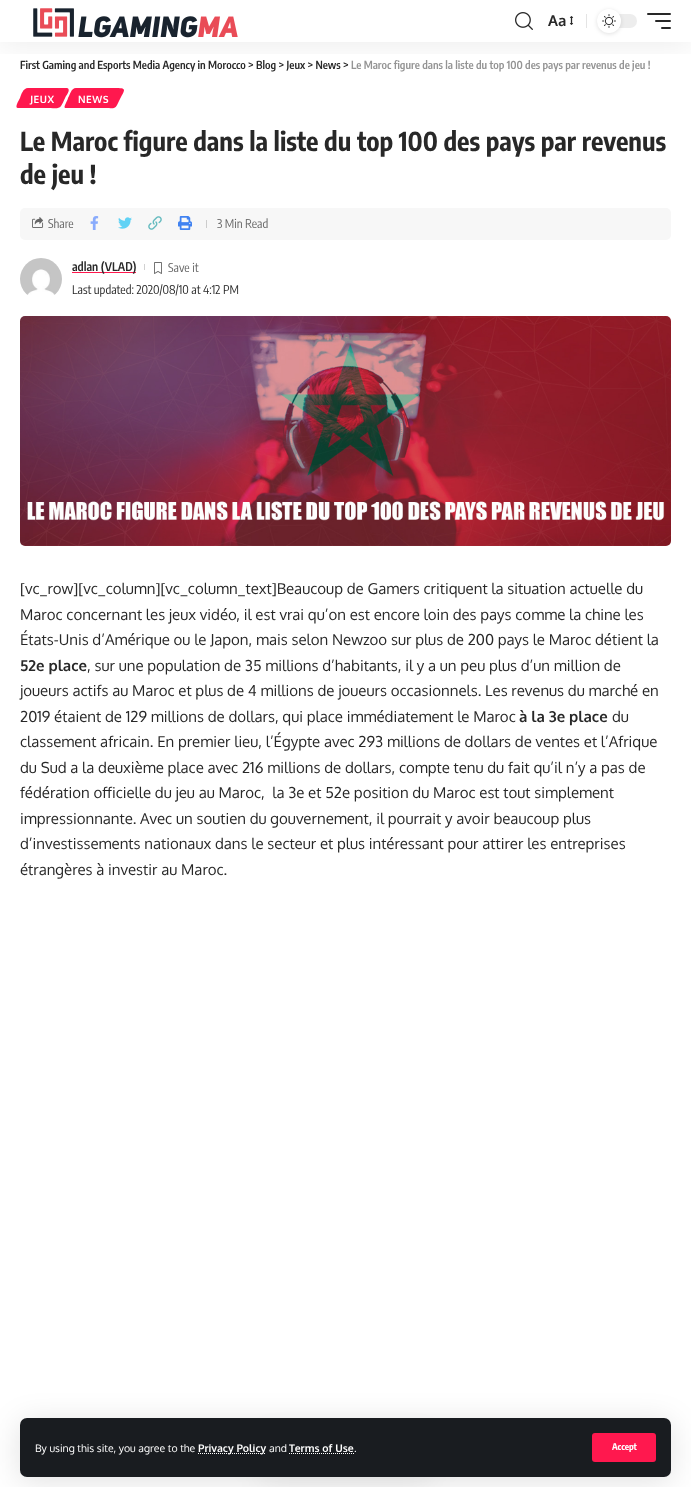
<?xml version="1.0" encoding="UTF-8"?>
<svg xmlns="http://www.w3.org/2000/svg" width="691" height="1487">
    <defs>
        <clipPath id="clip1"><rect x="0" y="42" width="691" height="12"/></clipPath>
        <filter id="blur1" x="-50%" y="-200%" width="200%" height="500%"><feGaussianBlur stdDeviation="15"/></filter>
        <filter id="blur2" x="-50%" y="-200%" width="200%" height="500%"><feGaussianBlur stdDeviation="2"/></filter>
    </defs>
    <rect width="100%" height="100%" fill="#FFFFFF"/>
    <path d="M 28 88 H 67 C 71 89 67 95 66 96 C 59 111 62 108 44 108 H 18 C 14 108 19 100 20 98 C 21 95 23 88 28 88 Z" fill="#FF184E"/>
    <path d="M 76 88 H 114 C 128 88 125 89 119 101 C 115 110 115 108 105 108 H 65 C 63 107 68 100 68 98 C 70 95 71 88 76 88 Z" fill="#FF184E"/>
    <g clip-path="url(#clip1)">
        <rect x="0" y="4" width="691" height="42" fill="#000000" fill-opacity="0.07" filter="url(#blur1)"/>
    </g>
    <image x="33" y="8" width="205" height="30" href="img_01.png"/>
    <image x="515" y="12" width="18" height="18" href="img_02.png"/>
    <text x="548" y="26" font-family="Oxygen" font-size="15" font-weight="700" fill="#282828">Aa</text>
    <image x="569" y="16" width="5" height="9" href="img_03.png"/>
    <rect x="586" y="14" width="1" height="14" fill="#E4E4E4"/>
    <rect x="597" y="14" width="40" height="14" rx="7" fill="#EDEDED"/>
    <rect x="597" y="10" width="24" height="24" rx="12" fill="#000000" fill-opacity="0.12" filter="url(#blur2)"/>
    <circle cx="609" cy="21" r="12" fill="#FFFFFF"/>
    <image x="602" y="14" width="14" height="14" href="img_04.png"/>
    <rect x="647" y="13" width="24" height="2" rx="1" fill="#282828"/>
    <rect x="655" y="20" width="16" height="2" rx="1" fill="#282828"/>
    <rect x="661" y="27" width="10" height="2" rx="1" fill="#282828"/>
    <rect x="20" y="1422" width="651" height="59" rx="7" fill="#000000" fill-opacity="0.12" filter="url(#blur1)"/>
    <rect x="262" y="1438" width="168" height="44" rx="5" fill="#000000" fill-opacity="0.07" filter="url(#blur1)"/>
    <rect x="20" y="1418" width="651" height="59" rx="7" fill="#191C20"/>
    <text x="35" y="1452" font-family="Oxygen" font-size="10.5" fill="#FFFFFF">By using this site, you agree to the</text>
    <path d="M 198 1453.5 H 266" fill="none" stroke="#FFFFFF" stroke-dasharray="1 1"/>
    <text x="198" y="1452" font-family="Oxygen" font-size="10.5" font-weight="700" fill="#FFFFFF">Privacy Policy</text>
    <text x="269" y="1452" font-family="Oxygen" font-size="10.5" fill="#FFFFFF">and</text>
    <text x="289" y="1452" font-family="Oxygen" font-size="10.5" font-weight="700" fill="#FFFFFF">Terms of Use</text>
    <path d="M 289 1453.5 H 354" fill="none" stroke="#FFFFFF" stroke-dasharray="1 1"/>
    <text x="354" y="1452" font-family="Oxygen" font-size="10.5" fill="#FFFFFF">.</text>
    <rect x="592" y="1433" width="64" height="29" rx="3" fill="#FF184E"/>
    <text x="612" y="1450" font-family="Encode Sans Condensed" font-size="9" font-weight="700" fill="#FFFFFF">Accept</text>
    <text x="20" y="69" font-family="Encode Sans Condensed" font-size="11" font-weight="600" fill="#282828">First Gaming and Esports Media Agency in Morocco &gt; Blog &gt; Jeux &gt; News &gt;</text>
    <text x="351" y="69" font-family="Encode Sans Condensed" font-size="11" font-weight="600" fill="#949494">Le Maroc figure dans la liste du top 100 des pays par revenus de jeu !</text>
    <text x="30" y="103" font-family="Oxygen" font-size="10" font-weight="700" letter-spacing="0.5" fill="#FFFFFF">JEUX</text>
    <text x="78" y="103" font-family="Oxygen" font-size="10" font-weight="700" letter-spacing="0.5" fill="#FFFFFF">NEWS</text>
    <text font-family="Encode Sans Condensed" font-size="26" font-weight="700" fill="#282828">
        <tspan x="20" y="151">Le Maroc figure dans la liste du top 100 des pays par revenus</tspan>
        <tspan x="20" y="184">de jeu !</tspan>
    </text>
    <rect x="20" y="208" width="651" height="32" rx="5" fill="#F7F7F7"/>
    <image x="32" y="217" width="12" height="11" href="img_05.png"/>
    <text x="48" y="228" font-family="Encode Sans Condensed" font-size="12" fill="#666666">Share</text>
    <image x="90" y="216" width="9" height="14" href="img_06.png"/>
    <image x="118" y="217" width="14" height="12" href="img_07.png"/>
    <image x="148" y="216" width="14" height="14" href="img_08.png"/>
    <image x="178" y="216" width="14" height="14" href="img_09.png"/>
    <rect x="206" y="220" width="1" height="8" fill="#CCCCCC"/>
    <text x="217" y="228" font-family="Encode Sans Condensed" font-size="12" fill="#666666">3 Min Read</text>
    <image x="20" y="258" width="42" height="37" href="img_10.png"/>
    <rect x="72" y="272" width="64" height="1" fill="#FF184E"/>
    <text x="72" y="271" font-family="Encode Sans Condensed" font-size="12" font-weight="600" fill="#282828">adlan (VLAD)</text>
    <rect x="144" y="264" width="1" height="6" fill="#D1D1D1"/>
    <image x="154" y="262" width="8" height="12" href="img_11.png"/>
    <text x="168" y="272" font-family="Encode Sans Condensed" font-size="12" fill="#666666">Save it</text>
    <text x="72" y="294" font-family="Encode Sans Condensed" font-size="12" fill="#282828">Last updated: 2020/08/10 at 4:12 PM</text>
    <image x="20" y="316" width="651" height="230" href="img_12.png"/>
    <text font-family="Oxygen" font-size="15" fill="#282828">
        <tspan x="20" y="594">[vc_row][vc_column][vc_column_text]Beaucoup de Gamers critiquent la situation actuelle du</tspan>
        <tspan x="20" y="620">Maroc concernant les jeux vidéo, il est vrai qu’on est encore loin des pays comme la chine les</tspan>
        <tspan x="20" y="645">États-Unis d’Amérique ou le Japon, mais selon Newzoo sur plus de 200 pays le Maroc détient la</tspan>
    </text>
    <text x="20" y="671" font-family="Oxygen" font-size="15" font-weight="700" fill="#282828">52e place</text>
    <text x="87" y="671" font-family="Oxygen" font-size="15" fill="#282828">, sur une population de 35 millions d’habitants, il y a un peu plus d’un million de</text>
    <text font-family="Oxygen" font-size="15" fill="#282828">
        <tspan x="20" y="696">joueurs actifs au Maroc et plus de 4 millions de joueurs occasionnels. Les revenus du marché en</tspan>
        <tspan x="20" y="722">2019 étaient de 129 millions de dollars, qui place immédiatement le Maroc</tspan>
    </text>
    <text x="519" y="722" font-family="Oxygen" font-size="15" font-weight="700" fill="#282828">à la 3e place</text>
    <text x="612" y="722" font-family="Oxygen" font-size="15" fill="#282828">du</text>
    <text font-family="Oxygen" font-size="15" fill="#282828" xml:space="preserve"><tspan x="20" y="747">classement africain. En premier lieu, l’Égypte avec 293 millions de dollars de ventes et l’Afrique</tspan><tspan x="20" y="773">du Sud a la deuxième place avec 216 millions de dollars, compte tenu du fait qu’il n’y a pas de</tspan><tspan x="20" y="798">fédération officielle du jeu au Maroc,  la 3e et 52e position du Maroc est tout simplement</tspan><tspan x="20" y="824">impressionnante. Avec un soutien du gouvernement, il pourrait y avoir beaucoup plus</tspan><tspan x="20" y="849">d’investissements nationaux dans le secteur et plus intéressant pour attirer les entreprises</tspan><tspan x="20" y="875">étrangères à investir au Maroc.</tspan></text>
</svg>
